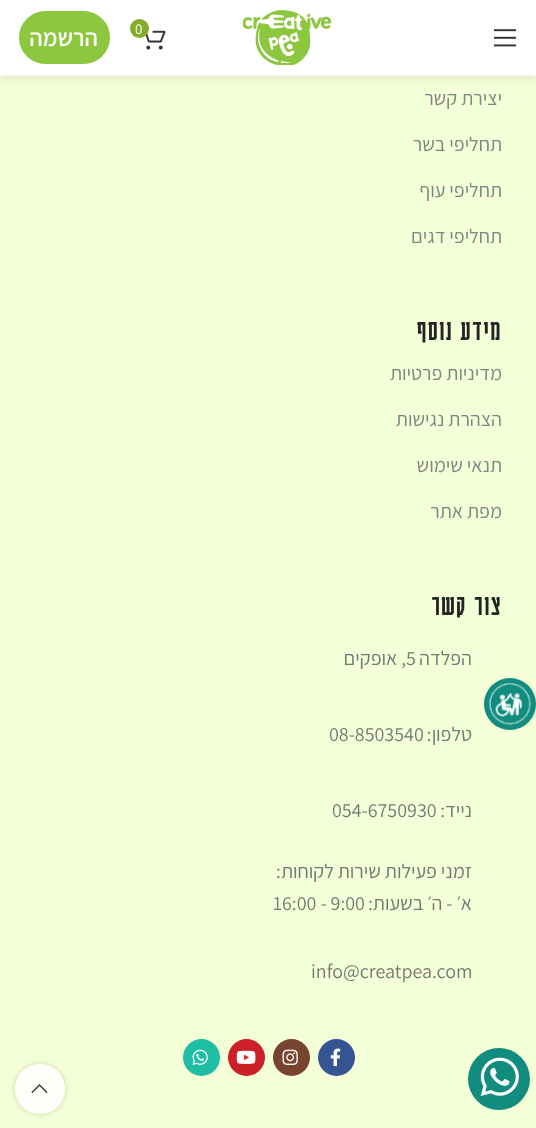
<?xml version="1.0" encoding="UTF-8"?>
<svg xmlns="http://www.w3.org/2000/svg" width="536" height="1128">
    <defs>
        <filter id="blur1" x="-50%" y="-200%" width="200%" height="500%"><feGaussianBlur stdDeviation="5"/></filter>
        <clipPath id="clip1"><path d="M 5 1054 H 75 V 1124 H 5 Z M 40 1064 C 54 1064 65 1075 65 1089 C 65 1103 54 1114 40 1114 C 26 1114 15 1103 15 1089 C 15 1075 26 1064 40 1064 Z" clip-rule="evenodd"/></clipPath>
        <filter id="blur2" x="-50%" y="-200%" width="200%" height="500%"><feGaussianBlur stdDeviation="3"/></filter>
    </defs>
    <rect width="100%" height="100%" fill="#F5FFD7"/>
    <circle cx="510" cy="704" r="26" fill="#128C7E"/>
    <image x="488" y="682" width="43" height="43" href="img_01.png"/>
    <rect x="0" y="1" width="536" height="77" fill="#000000" fill-opacity="0.1" filter="url(#blur1)"/>
    <rect x="0" y="0" width="536" height="75" fill="#FFFFFF"/>
    <rect x="0" y="75" width="536" height="1" fill="#F5F5F5"/>
    <image x="494" y="29" width="22" height="18" href="img_02.png"/>
    <image x="243" y="10" width="88" height="55" href="img_03.png"/>
    <image x="145" y="30" width="21" height="20" href="img_04.png"/>
    <circle cx="139.5" cy="28.5" r="9.5" fill="#83AC2B"/>
    <text x="135" y="34" font-family="Assistant" font-size="15" fill="#FFFFFF">0</text>
    <rect x="19" y="11" width="91" height="53" rx="26.5" fill="#8DC63F"/>
    <text x="98" y="46" font-family="Assistant" font-size="24" font-weight="600" direction="rtl" fill="#FFFFFF">הרשמה</text>
    <text x="502" y="105" font-family="Assistant" font-size="20" direction="rtl" fill="#838383">יצירת קשר</text>
    <text x="502" y="151" font-family="Assistant" font-size="20" direction="rtl" fill="#838383">תחליפי בשר</text>
    <text x="502" y="197" font-family="Assistant" font-size="20" direction="rtl" fill="#838383">תחליפי עוף</text>
    <text x="502" y="243" font-family="Assistant" font-size="20" direction="rtl" fill="#838383">תחליפי דגים</text>
    <text x="502" y="340" font-family="Karantina" font-size="30" letter-spacing="1.9" direction="rtl" fill="#242424">מידע נוסף</text>
    <text x="502" y="380" font-family="Assistant" font-size="20" direction="rtl" fill="#838383">מדיניות פרטיות</text>
    <text x="502" y="426" font-family="Assistant" font-size="20" direction="rtl" fill="#838383">הצהרת נגישות</text>
    <text x="502" y="472" font-family="Assistant" font-size="20" direction="rtl" fill="#838383">תנאי שימוש</text>
    <text x="502" y="518" font-family="Assistant" font-size="20" direction="rtl" fill="#838383">מפת אתר</text>
    <text x="502" y="615" font-family="Karantina" font-size="30" letter-spacing="1.9" direction="rtl" fill="#242424">צור קשר</text>
    <text x="472" y="665" font-family="Assistant" font-size="20" direction="rtl" fill="#777777">הפלדה</text>
    <text x="406" y="665" font-family="Assistant" font-size="20" fill="#777777">5</text>
    <text x="406" y="665" font-family="Assistant" font-size="20" direction="rtl" fill="#777777">, אופקים</text>
    <text x="472" y="741" font-family="Assistant" font-size="20" direction="rtl" fill="#777777">טלפון:</text>
    <text x="329" y="741" font-family="Assistant" font-size="20" fill="#777777">08-8503540</text>
    <text x="472" y="817" font-family="Assistant" font-size="20" direction="rtl" fill="#777777">נייד:</text>
    <text x="332" y="817" font-family="Assistant" font-size="20" fill="#777777">054-6750930</text>
    <text font-family="Assistant" font-size="20" direction="rtl" fill="#777777">
        <tspan x="472" y="878">זמני פעילות שירות לקוחות:</tspan>
        <tspan x="472" y="910">א׳ - ה׳ בשעות:</tspan>
    </text>
    <text x="273" y="910" font-family="Assistant" font-size="20" fill="#777777">16:00 - 9:00</text>
    <text x="311" y="978" font-family="Assistant" font-size="20" fill="#777777">info@creatpea.com</text>
    <circle cx="336.5" cy="1057.5" r="18.5" fill="#365493"/>
    <image x="330" y="1048" width="11" height="19" href="img_05.png"/>
    <circle cx="291.5" cy="1057.5" r="18.5" fill="#774430"/>
    <image x="282" y="1049" width="16" height="16" href="img_06.png"/>
    <circle cx="246.5" cy="1057.5" r="18.5" fill="#CB2027"/>
    <image x="236" y="1050" width="20" height="14" href="img_07.png"/>
    <circle cx="201.5" cy="1057.5" r="18.5" fill="#1EBEA5"/>
    <image x="192" y="1049" width="16" height="16" href="img_08.png"/>
    <circle cx="499" cy="1079" r="31" fill="#128C7E"/>
    <image x="480" y="1057" width="39" height="39" href="img_09.png"/>
    <g clip-path="url(#clip1)">
        <rect x="15" y="1064" width="50" height="50" rx="25" fill="#000000" fill-opacity="0.17" filter="url(#blur2)"/>
    </g>
    <circle cx="40" cy="1089" r="25" fill="#FFFFFF" fill-opacity="0.9"/>
    <image x="31" y="1084" width="17" height="9" href="img_10.png"/>
</svg>
